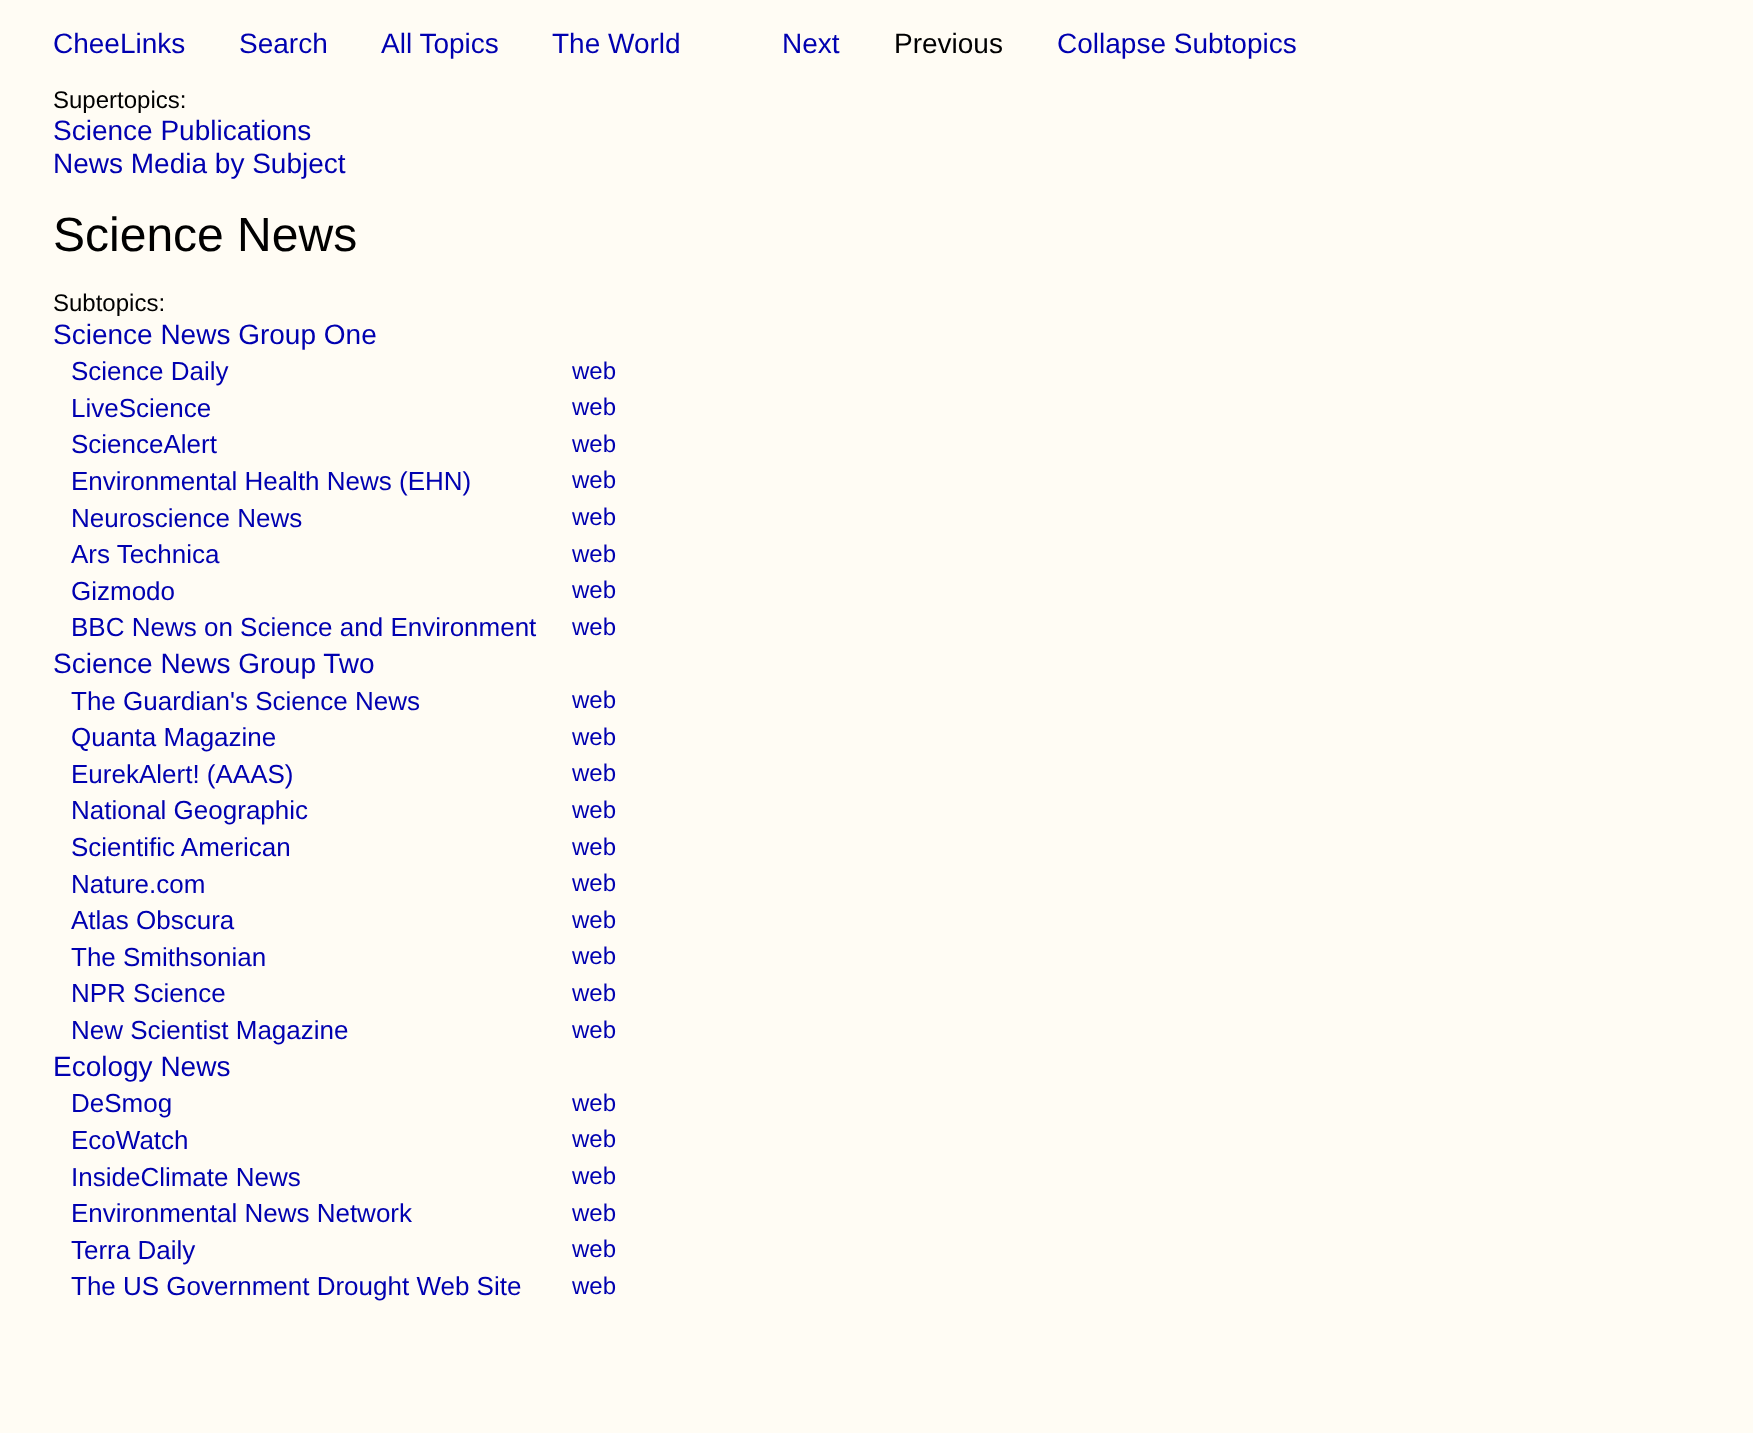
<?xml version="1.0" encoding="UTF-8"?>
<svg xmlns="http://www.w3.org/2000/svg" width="1753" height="1433">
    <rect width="100%" height="100%" fill="#FFFCF4"/>
    <text x="53" y="53" font-family="Liberation Sans" font-size="28" fill="#0000B0">CheeLinks</text>
    <text x="239" y="53" font-family="Liberation Sans" font-size="28" fill="#0000B0">Search</text>
    <text x="381" y="53" font-family="Liberation Sans" font-size="28" fill="#0000B0">All Topics</text>
    <text x="552" y="53" font-family="Liberation Sans" font-size="28" fill="#0000B0">The World</text>
    <text x="782" y="53" font-family="Liberation Sans" font-size="28" fill="#0000B0">Next</text>
    <text x="894" y="53" font-family="Liberation Sans" font-size="28" fill="#000000">Previous</text>
    <text x="1057" y="53" font-family="Liberation Sans" font-size="28" fill="#0000B0">Collapse Subtopics</text>
    <text x="53" y="108" font-family="Liberation Sans" font-size="24" fill="#000000">Supertopics:</text>
    <text font-family="Liberation Sans" font-size="28" fill="#0000B0">
        <tspan x="53" y="140">Science Publications</tspan>
        <tspan x="53" y="173">News Media by Subject</tspan>
    </text>
    <text x="53" y="251" font-family="Liberation Sans" font-size="48" fill="#000000">Science News</text>
    <text x="53" y="311" font-family="Liberation Sans" font-size="24" fill="#000000">Subtopics:</text>
    <text x="53" y="344" font-family="Liberation Sans" font-size="28" fill="#0000B0">Science News Group One</text>
    <text x="71" y="380" font-family="Liberation Sans" font-size="26" fill="#0000B0">Science Daily</text>
    <text x="572" y="379" font-family="Liberation Sans" font-size="24" fill="#0000B0">web</text>
    <text x="71" y="417" font-family="Liberation Sans" font-size="26" fill="#0000B0">LiveScience</text>
    <text x="572" y="415" font-family="Liberation Sans" font-size="24" fill="#0000B0">web</text>
    <text x="71" y="453" font-family="Liberation Sans" font-size="26" fill="#0000B0">ScienceAlert</text>
    <text x="572" y="452" font-family="Liberation Sans" font-size="24" fill="#0000B0">web</text>
    <text x="71" y="490" font-family="Liberation Sans" font-size="26" fill="#0000B0">Environmental Health News (EHN)</text>
    <text x="572" y="488" font-family="Liberation Sans" font-size="24" fill="#0000B0">web</text>
    <text x="71" y="527" font-family="Liberation Sans" font-size="26" fill="#0000B0">Neuroscience News</text>
    <text x="572" y="525" font-family="Liberation Sans" font-size="24" fill="#0000B0">web</text>
    <text x="71" y="563" font-family="Liberation Sans" font-size="26" fill="#0000B0">Ars Technica</text>
    <text x="572" y="562" font-family="Liberation Sans" font-size="24" fill="#0000B0">web</text>
    <text x="71" y="600" font-family="Liberation Sans" font-size="26" fill="#0000B0">Gizmodo</text>
    <text x="572" y="598" font-family="Liberation Sans" font-size="24" fill="#0000B0">web</text>
    <text x="71" y="636" font-family="Liberation Sans" font-size="26" fill="#0000B0">BBC News on Science and Environment</text>
    <text x="572" y="635" font-family="Liberation Sans" font-size="24" fill="#0000B0">web</text>
    <text x="53" y="673" font-family="Liberation Sans" font-size="28" fill="#0000B0">Science News Group Two</text>
    <text x="71" y="710" font-family="Liberation Sans" font-size="26" fill="#0000B0">The Guardian's Science News</text>
    <text x="572" y="708" font-family="Liberation Sans" font-size="24" fill="#0000B0">web</text>
    <text x="71" y="746" font-family="Liberation Sans" font-size="26" fill="#0000B0">Quanta Magazine</text>
    <text x="572" y="745" font-family="Liberation Sans" font-size="24" fill="#0000B0">web</text>
    <text x="71" y="783" font-family="Liberation Sans" font-size="26" fill="#0000B0">EurekAlert! (AAAS)</text>
    <text x="572" y="781" font-family="Liberation Sans" font-size="24" fill="#0000B0">web</text>
    <text x="71" y="819" font-family="Liberation Sans" font-size="26" fill="#0000B0">National Geographic</text>
    <text x="572" y="818" font-family="Liberation Sans" font-size="24" fill="#0000B0">web</text>
    <text x="71" y="856" font-family="Liberation Sans" font-size="26" fill="#0000B0">Scientific American</text>
    <text x="572" y="855" font-family="Liberation Sans" font-size="24" fill="#0000B0">web</text>
    <text x="71" y="893" font-family="Liberation Sans" font-size="26" fill="#0000B0">Nature.com</text>
    <text x="572" y="891" font-family="Liberation Sans" font-size="24" fill="#0000B0">web</text>
    <text x="71" y="929" font-family="Liberation Sans" font-size="26" fill="#0000B0">Atlas Obscura</text>
    <text x="572" y="928" font-family="Liberation Sans" font-size="24" fill="#0000B0">web</text>
    <text x="71" y="966" font-family="Liberation Sans" font-size="26" fill="#0000B0">The Smithsonian</text>
    <text x="572" y="964" font-family="Liberation Sans" font-size="24" fill="#0000B0">web</text>
    <text x="71" y="1002" font-family="Liberation Sans" font-size="26" fill="#0000B0">NPR Science</text>
    <text x="572" y="1001" font-family="Liberation Sans" font-size="24" fill="#0000B0">web</text>
    <text x="71" y="1039" font-family="Liberation Sans" font-size="26" fill="#0000B0">New Scientist Magazine</text>
    <text x="572" y="1038" font-family="Liberation Sans" font-size="24" fill="#0000B0">web</text>
    <text x="53" y="1076" font-family="Liberation Sans" font-size="28" fill="#0000B0">Ecology News</text>
    <text x="71" y="1112" font-family="Liberation Sans" font-size="26" fill="#0000B0">DeSmog</text>
    <text x="572" y="1111" font-family="Liberation Sans" font-size="24" fill="#0000B0">web</text>
    <text x="71" y="1149" font-family="Liberation Sans" font-size="26" fill="#0000B0">EcoWatch</text>
    <text x="572" y="1147" font-family="Liberation Sans" font-size="24" fill="#0000B0">web</text>
    <text x="71" y="1186" font-family="Liberation Sans" font-size="26" fill="#0000B0">InsideClimate News</text>
    <text x="572" y="1184" font-family="Liberation Sans" font-size="24" fill="#0000B0">web</text>
    <text x="71" y="1222" font-family="Liberation Sans" font-size="26" fill="#0000B0">Environmental News Network</text>
    <text x="572" y="1221" font-family="Liberation Sans" font-size="24" fill="#0000B0">web</text>
    <text x="71" y="1259" font-family="Liberation Sans" font-size="26" fill="#0000B0">Terra Daily</text>
    <text x="572" y="1257" font-family="Liberation Sans" font-size="24" fill="#0000B0">web</text>
    <text x="71" y="1295" font-family="Liberation Sans" font-size="26" fill="#0000B0">The US Government Drought Web Site</text>
    <text x="572" y="1294" font-family="Liberation Sans" font-size="24" fill="#0000B0">web</text>
</svg>
